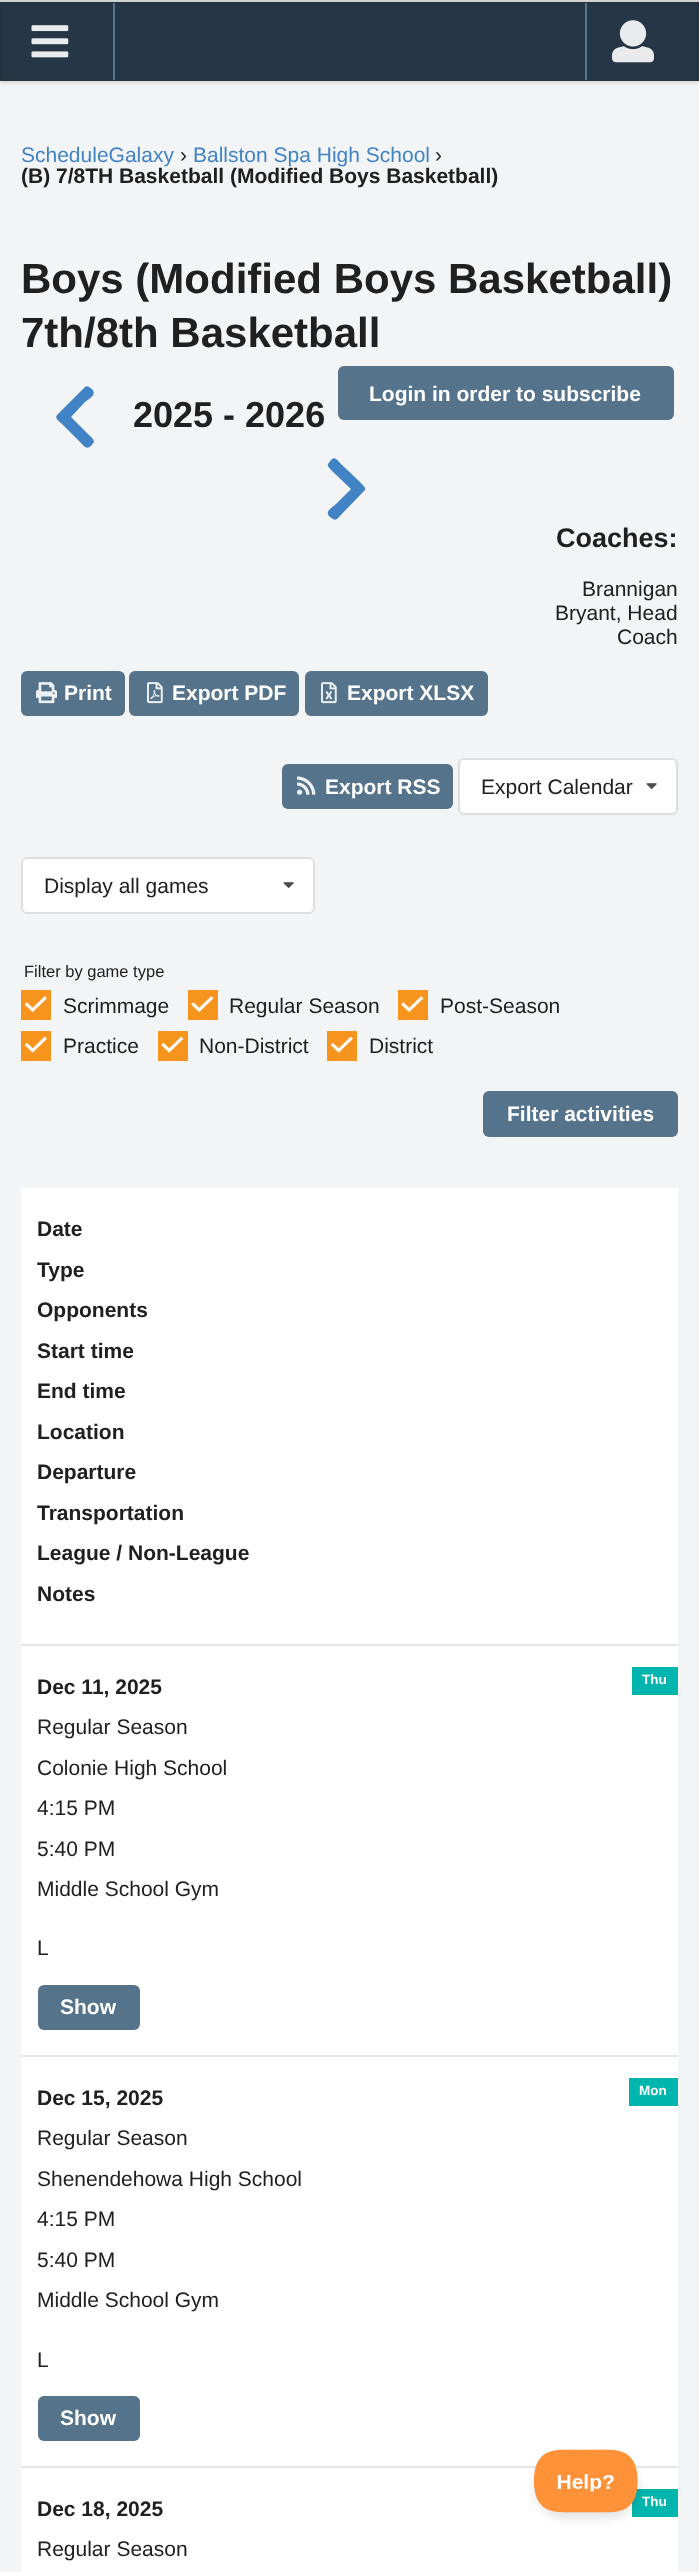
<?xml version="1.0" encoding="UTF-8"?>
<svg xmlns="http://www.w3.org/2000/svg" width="699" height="2572">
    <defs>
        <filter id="blur1" x="-50%" y="-200%" width="200%" height="500%"><feGaussianBlur stdDeviation="1.5"/></filter>
        <filter id="blur2" x="-50%" y="-200%" width="200%" height="500%"><feGaussianBlur stdDeviation="5"/></filter>
    </defs>
    <rect width="100%" height="100%" fill="#FFFFFF"/>
    <rect x="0" y="1" width="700" height="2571" fill="none" stroke="#D4D4D5" stroke-width="2"/>
    <rect x="0" y="81" width="699" height="2491" fill="#F3F4F5"/>
    <rect x="0" y="3" width="699" height="80" fill="#222426" fill-opacity="0.15" filter="url(#blur1)"/>
    <rect x="1" y="3" width="697" height="77" fill="#253746" stroke="#253441" stroke-width="2"/>
    <image x="31" y="25" width="38" height="33" href="img_01.png"/>
    <rect x="113" y="3" width="2" height="77" fill="#55738B"/>
    <rect x="585" y="3" width="2" height="77" fill="#55738B"/>
    <image x="612" y="20" width="42" height="43" href="img_02.png"/>
    <text x="21" y="162" font-family="Liberation Sans" font-size="21" fill="#4183C4">ScheduleGalaxy</text>
    <text x="180" y="162" font-family="Liberation Sans" font-size="21" fill="#202020">›</text>
    <text x="193" y="162" font-family="Liberation Sans" font-size="21" fill="#4183C4">Ballston Spa High School</text>
    <text x="435" y="162" font-family="Liberation Sans" font-size="21" fill="#202020">›</text>
    <text x="21" y="183" font-family="Liberation Sans" font-size="21" font-weight="700" fill="#202020">(B) 7/8TH Basketball (Modified Boys Basketball)</text>
    <text font-family="Liberation Sans" font-size="42" font-weight="700" fill="#202020">
        <tspan x="21" y="293">Boys (Modified Boys Basketball)</tspan>
        <tspan x="21" y="347">7th/8th Basketball</tspan>
    </text>
    <rect x="338" y="366" width="336" height="54" rx="6" fill="#55738B"/>
    <text x="369" y="401" font-family="Liberation Sans" font-size="21" font-weight="700" fill="#FFFFFF">Login in order to subscribe</text>
    <path d="M 57 415 L 85 387 C 87 385 90 388 92 389 C 97 395 90 398 85 402 L 71 417 L 89 435 C 91 437 94 439 94 442 L 91 446 C 86 450 84 446 80 442 L 62 424 C 60 422 54 418 57 415 Z" fill="#4183C4"/>
    <text x="133" y="427" font-family="Liberation Sans" font-size="36" font-weight="700" fill="#202020">2025 - 2026</text>
    <path d="M 364 491 L 337 519 C 334 521 332 518 330 517 C 324 511 332 508 336 504 L 351 489 L 332 471 C 331 469 327 467 328 464 L 331 460 C 335 456 337 460 341 464 L 360 482 C 361 484 368 488 364 491 Z" fill="#4183C4"/>
    <text x="556" y="547" font-family="Liberation Sans" font-size="27" font-weight="700" fill="#202020">Coaches:</text>
    <text x="582" y="596" font-family="Liberation Sans" font-size="21" fill="#202020">Brannigan</text>
    <text x="555" y="620" font-family="Liberation Sans" font-size="21" fill="#202020">Bryant, Head</text>
    <text x="617" y="644" font-family="Liberation Sans" font-size="21" fill="#202020">Coach</text>
    <rect x="21" y="671" width="104" height="45" rx="6" fill="#55738B"/>
    <image x="36" y="682" width="21" height="22" href="img_03.png"/>
    <text x="64" y="700" font-family="Liberation Sans" font-size="21" font-weight="700" fill="#FFFFFF">Print</text>
    <rect x="129" y="671" width="170" height="45" rx="6" fill="#55738B"/>
    <image x="147" y="682" width="16" height="22" href="img_04.png"/>
    <text x="172" y="700" font-family="Liberation Sans" font-size="21" font-weight="700" fill="#FFFFFF">Export PDF</text>
    <rect x="305" y="671" width="183" height="45" rx="6" fill="#55738B"/>
    <image x="321" y="682" width="16" height="22" href="img_05.png"/>
    <text x="347" y="700" font-family="Liberation Sans" font-size="21" font-weight="700" fill="#FFFFFF">Export XLSX</text>
    <rect x="282" y="764" width="171" height="45" rx="6" fill="#55738B"/>
    <image x="297" y="776" width="19" height="19" href="img_06.png"/>
    <text x="325" y="794" font-family="Liberation Sans" font-size="21" font-weight="700" fill="#FFFFFF">Export RSS</text>
    <rect x="458" y="758" width="220" height="57" rx="6" fill="#FFFFFF"/>
    <rect x="459" y="759" width="218" height="55" rx="5" fill="none" stroke="#222426" stroke-opacity="0.15" stroke-width="2"/>
    <text x="481" y="794" font-family="Liberation Sans" font-size="21" fill="#202020">Export Calendar</text>
    <image x="646" y="783" width="11" height="6" href="img_07.png"/>
    <rect x="21" y="857" width="294" height="57" rx="6" fill="#FFFFFF"/>
    <rect x="22" y="858" width="292" height="55" rx="5" fill="none" stroke="#222426" stroke-opacity="0.15" stroke-width="2"/>
    <text x="44" y="893" font-family="Liberation Sans" font-size="21" fill="#202020">Display all games</text>
    <image x="283" y="882" width="11" height="6" href="img_07.png"/>
    <text x="24" y="977" font-family="Liberation Sans" font-size="16.5" fill="#202020">Filter by game type</text>
    <rect x="24" y="993" width="24" height="24" fill="#F7941E"/>
    <image x="24" y="996" width="24" height="17" href="img_08.png"/>
    <rect x="22.5" y="991.5" width="27" height="27" fill="none" stroke="#F7941E" stroke-width="3"/>
    <text x="63" y="1013" font-family="Liberation Sans" font-size="21" fill="#202020">Scrimmage</text>
    <rect x="214" y="993" width="1" height="24" fill="#F7941E"/>
    <image x="191" y="993" width="23" height="24" href="img_09.png"/>
    <rect x="189.5" y="991.5" width="27" height="27" fill="none" stroke="#F7941E" stroke-width="3"/>
    <text x="229" y="1013" font-family="Liberation Sans" font-size="21" fill="#202020">Regular Season</text>
    <rect x="424" y="993" width="1" height="24" fill="#F7941E"/>
    <image x="401" y="993" width="23" height="24" href="img_09.png"/>
    <rect x="399.5" y="991.5" width="27" height="27" fill="none" stroke="#F7941E" stroke-width="3"/>
    <text x="440" y="1013" font-family="Liberation Sans" font-size="21" fill="#202020">Post-Season</text>
    <rect x="24" y="1053" width="24" height="5" fill="#F7941E"/>
    <image x="24" y="1034" width="24" height="19" href="img_10.png"/>
    <rect x="22.5" y="1032.5" width="27" height="27" fill="none" stroke="#F7941E" stroke-width="3"/>
    <text x="63" y="1053" font-family="Liberation Sans" font-size="21" fill="#202020">Practice</text>
    <rect x="161" y="1034" width="24" height="24" fill="#F7941E"/>
    <image x="161" y="1034" width="24" height="24" href="img_11.png"/>
    <rect x="159.5" y="1032.5" width="27" height="27" fill="none" stroke="#F7941E" stroke-width="3"/>
    <text x="199" y="1053" font-family="Liberation Sans" font-size="21" fill="#202020">Non-District</text>
    <rect x="330" y="1053" width="24" height="5" fill="#F7941E"/>
    <image x="330" y="1034" width="24" height="19" href="img_10.png"/>
    <rect x="328.5" y="1032.5" width="27" height="27" fill="none" stroke="#F7941E" stroke-width="3"/>
    <text x="369" y="1053" font-family="Liberation Sans" font-size="21" fill="#202020">District</text>
    <rect x="483" y="1091" width="195" height="46" rx="6" fill="#55738B"/>
    <text x="507" y="1121" font-family="Liberation Sans" font-size="21" font-weight="700" fill="#FFFFFF">Filter activities</text>
    <rect x="21" y="1188" width="657" height="1384" fill="#FFFFFF"/>
    <rect x="21" y="1644" width="657" height="2" fill="#E6E6E6"/>
    <text font-family="Liberation Sans" font-size="21" font-weight="700" fill="#202020">
        <tspan x="37" y="1236">Date</tspan>
        <tspan x="37" y="1277">Type</tspan>
        <tspan x="37" y="1317">Opponents</tspan>
        <tspan x="37" y="1358">Start time</tspan>
        <tspan x="37" y="1398">End time</tspan>
        <tspan x="37" y="1439">Location</tspan>
        <tspan x="37" y="1479">Departure</tspan>
        <tspan x="37" y="1520">Transportation</tspan>
        <tspan x="37" y="1560">League / Non-League</tspan>
        <tspan x="37" y="1601">Notes</tspan>
    </text>
    <rect x="21" y="2055" width="657" height="2" fill="#E6E6E6"/>
    <text x="37" y="1694" font-family="Liberation Sans" font-size="21" font-weight="700" fill="#202020">Dec 11, 2025</text>
    <rect x="632" y="1667" width="46" height="28" fill="#00B5AD"/>
    <text x="642" y="1684" font-family="Liberation Sans" font-size="13.5" font-weight="700" fill="#FFFFFF">Thu</text>
    <text font-family="Liberation Sans" font-size="21" fill="#202020">
        <tspan x="37" y="1734">Regular Season</tspan>
        <tspan x="37" y="1775">Colonie High School</tspan>
        <tspan x="37" y="1815">4:15 PM</tspan>
        <tspan x="37" y="1856">5:40 PM</tspan>
        <tspan x="37" y="1896">Middle School Gym</tspan>
    </text>
    <text x="37" y="1955" font-family="Liberation Sans" font-size="21" fill="#202020">L</text>
    <rect x="38" y="1985" width="102" height="45" rx="6" fill="#55738B"/>
    <text x="60" y="2014" font-family="Liberation Sans" font-size="21" font-weight="700" fill="#FFFFFF">Show</text>
    <rect x="21" y="2466" width="657" height="2" fill="#E6E6E6"/>
    <text x="37" y="2105" font-family="Liberation Sans" font-size="21" font-weight="700" fill="#202020">Dec 15, 2025</text>
    <rect x="629" y="2078" width="49" height="28" fill="#00B5AD"/>
    <text x="639" y="2095" font-family="Liberation Sans" font-size="13.5" font-weight="700" fill="#FFFFFF">Mon</text>
    <text font-family="Liberation Sans" font-size="21" fill="#202020">
        <tspan x="37" y="2145">Regular Season</tspan>
        <tspan x="37" y="2186">Shenendehowa High School</tspan>
        <tspan x="37" y="2226">4:15 PM</tspan>
        <tspan x="37" y="2267">5:40 PM</tspan>
        <tspan x="37" y="2307">Middle School Gym</tspan>
    </text>
    <text x="37" y="2367" font-family="Liberation Sans" font-size="21" fill="#202020">L</text>
    <rect x="38" y="2396" width="102" height="45" rx="6" fill="#55738B"/>
    <text x="60" y="2425" font-family="Liberation Sans" font-size="21" font-weight="700" fill="#FFFFFF">Show</text>
    <text x="37" y="2516" font-family="Liberation Sans" font-size="21" font-weight="700" fill="#202020">Dec 18, 2025</text>
    <rect x="632" y="2489" width="46" height="28" fill="#00B5AD"/>
    <text x="642" y="2506" font-family="Liberation Sans" font-size="13.5" font-weight="700" fill="#FFFFFF">Thu</text>
    <text x="37" y="2556" font-family="Liberation Sans" font-size="21" fill="#202020">Regular Season</text>
    <rect x="534" y="2456" width="105" height="63" rx="31.5" fill="#000000" fill-opacity="0.1" filter="url(#blur2)"/>
    <image x="534" y="2449" width="104" height="64" href="img_12.png"/>
</svg>
